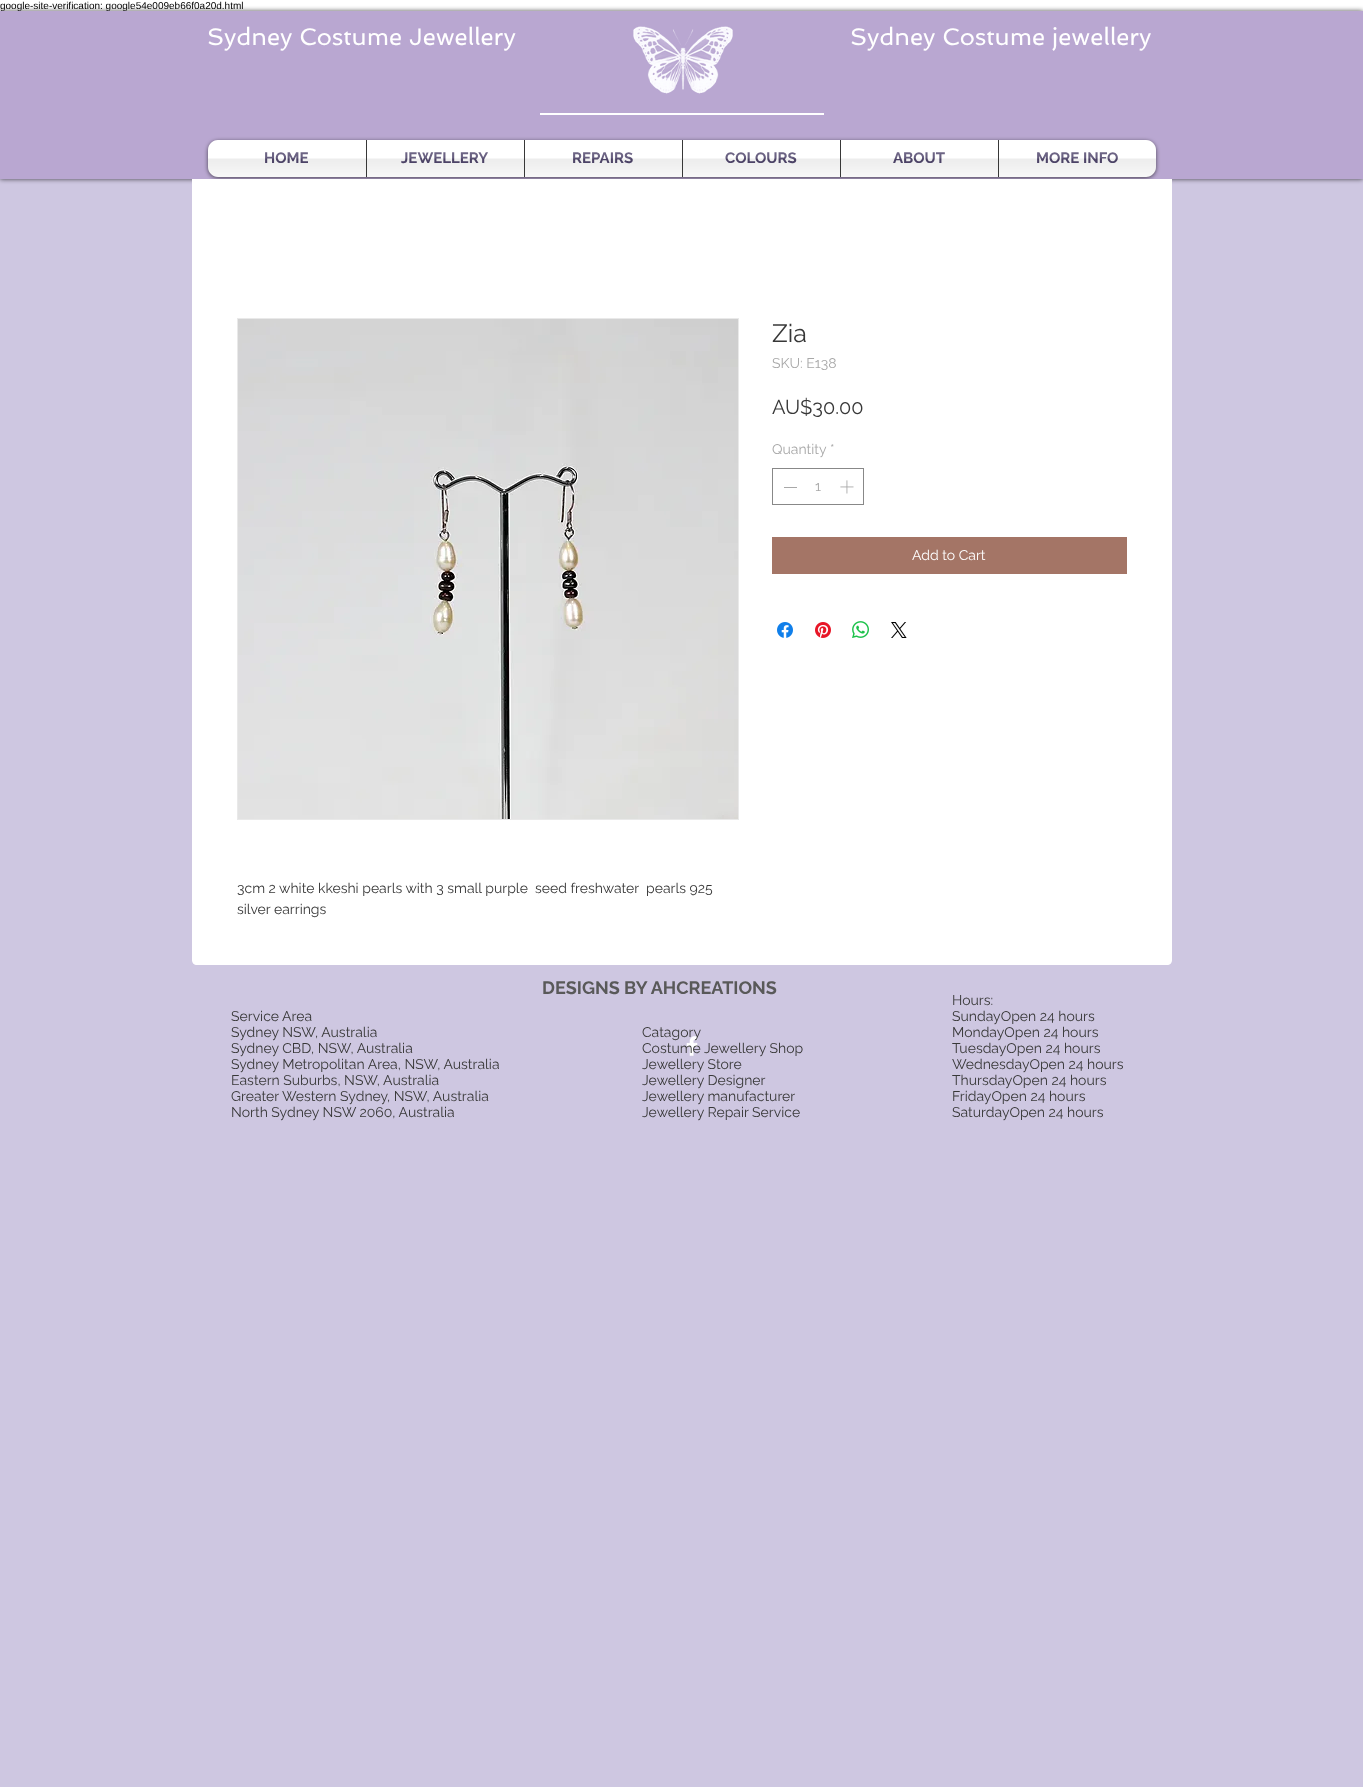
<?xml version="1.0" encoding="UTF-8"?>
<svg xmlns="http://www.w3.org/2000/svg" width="1363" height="1787">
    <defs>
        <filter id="blur1" x="-50%" y="-200%" width="200%" height="500%"><feGaussianBlur stdDeviation="2.5"/></filter>
        <filter id="blur2" x="-50%" y="-200%" width="200%" height="500%"><feGaussianBlur stdDeviation="2"/></filter>
    </defs>
    <rect width="100%" height="100%" fill="#FFFFFF"/>
    <text x="0" y="9" font-family="Liberation Sans" font-size="10" fill="#000000">google-site-verification: google54e009eb66f0a20d.html</text>
    <rect x="0" y="179" width="1363" height="1608" fill="#CEC7E1"/>
    <rect x="0" y="11" width="1363" height="168" fill="#000000" fill-opacity="0.7" filter="url(#blur1)"/>
    <rect x="0" y="11" width="1363" height="168" fill="#B9A7D1"/>
    <text x="207" y="45" font-family="Spinnaker" font-size="24" fill="#FFFFFF">Sydney Costume Jewellery</text>
    <image x="633" y="26" width="100" height="68" href="img_01.png"/>
    <text x="850" y="45" font-family="Spinnaker" font-size="24" fill="#FFFFFF">Sydney Costume jewellery</text>
    <rect x="540" y="113" width="284" height="2" fill="#FFFFFF"/>
    <rect x="208" y="141" width="948" height="37" rx="10" fill="#000000" fill-opacity="0.6" filter="url(#blur2)"/>
    <image x="208" y="140" width="948" height="37" href="img_02.png"/>
    <path d="M 218 140 H 366 V 177 H 218 C 212.5 177 208 172.5 208 167 V 150 C 208 144.5 212.5 140 218 140 Z" fill="#FFFFFF"/>
    <text x="264" y="163" font-family="Raleway" font-size="15" font-weight="700" fill="#52486E">HOME</text>
    <image x="208" y="152" width="158" height="25" href="img_03.png"/>
    <rect x="367" y="140" width="157" height="37" fill="#FFFFFF"/>
    <rect x="366" y="140" width="1" height="37" fill="#383838"/>
    <text x="401" y="163" font-family="Raleway" font-size="15" font-weight="700" fill="#52486E">JEWELLERY</text>
    <image x="367" y="152" width="157" height="25" href="img_04.png"/>
    <rect x="525" y="140" width="157" height="37" fill="#FFFFFF"/>
    <rect x="524" y="140" width="1" height="37" fill="#383838"/>
    <text x="572" y="163" font-family="Raleway" font-size="15" font-weight="700" fill="#52486E">REPAIRS</text>
    <image x="525" y="152" width="157" height="25" href="img_05.png"/>
    <rect x="683" y="140" width="157" height="37" fill="#FFFFFF"/>
    <rect x="682" y="140" width="1" height="37" fill="#383838"/>
    <text x="725" y="163" font-family="Raleway" font-size="15" font-weight="700" fill="#52486E">COLOURS</text>
    <image x="683" y="152" width="157" height="25" href="img_06.png"/>
    <rect x="841" y="140" width="157" height="37" fill="#FFFFFF"/>
    <rect x="840" y="140" width="1" height="37" fill="#383838"/>
    <text x="893" y="163" font-family="Raleway" font-size="15" font-weight="700" fill="#52486E">ABOUT</text>
    <image x="841" y="152" width="157" height="25" href="img_07.png"/>
    <path d="M 998 140 H 1146 C 1151.5 140 1156 144.5 1156 150 V 167 C 1156 172.5 1151.5 177 1146 177 H 998 Z" fill="#FFFFFF"/>
    <rect x="998" y="140" width="1" height="37" fill="#383838"/>
    <text x="1036" y="163" font-family="Raleway" font-size="15" font-weight="700" fill="#52486E">MORE INFO</text>
    <image x="999" y="152" width="157" height="25" href="img_08.png"/>
    <path d="M 192 179 H 1172 V 960 C 1172 963 1170 965 1167 965 H 197 C 194 965 192 963 192 960 Z" fill="#FFFFFF"/>
    <text x="772" y="342" font-family="Raleway" font-size="25" fill="#383838">Zia</text>
    <text x="772" y="368" font-family="Raleway" font-size="14" fill="#A8A8A8">SKU: E138</text>
    <text x="772" y="414" font-family="Raleway" font-size="20" fill="#383838">AU$30.00</text>
    <text x="772" y="454" font-family="Raleway" font-size="14" fill="#A8A8A8">Quantity</text>
    <text x="830" y="454" font-family="Raleway" font-size="14" fill="#A8A8A8">*</text>
    <rect x="772.5" y="468.5" width="91" height="36" fill="none" stroke="#888888"/>
    <rect x="784" y="487" width="13" height="1" fill="#A8A8A8"/>
    <text x="815" y="491" font-family="Raleway" font-size="14" fill="#A8A8A8">1</text>
    <image x="840" y="480" width="14" height="14" href="img_09.png"/>
    <rect x="772" y="537" width="355" height="37" fill="#A47566"/>
    <text x="912" y="560" font-family="Raleway" font-size="14" fill="#FFFFFF">Add to Cart</text>
    <image x="777" y="622" width="16" height="16" href="img_10.png"/>
    <image x="815" y="622" width="16" height="16" href="img_11.png"/>
    <image x="852" y="621" width="17" height="17" href="img_12.png"/>
    <image x="891" y="622" width="16" height="16" href="img_13.png"/>
    <rect x="237.5" y="318.5" width="501" height="501" fill="none" stroke="#E9E9E9"/>
    <image x="238" y="319" width="500" height="500" href="img_14.png"/>
    <text font-family="Raleway" font-size="14" fill="#383838" xml:space="preserve"><tspan x="237" y="893">3cm 2 white kkeshi pearls with 3 small purple  seed freshwater  pearls 925</tspan><tspan x="237" y="914">silver earrings</tspan></text>
    <text x="542" y="994" font-family="Raleway" font-size="18" font-weight="700" fill="#595959">DESIGNS BY AHCREATIONS</text>
    <text font-family="Raleway" font-size="14" fill="#383838">
        <tspan x="231" y="1021">Service Area</tspan>
        <tspan x="231" y="1037">Sydney NSW, Australia</tspan>
        <tspan x="231" y="1053">Sydney CBD, NSW, Australia</tspan>
        <tspan x="231" y="1069">Sydney Metropolitan Area, NSW, Australia</tspan>
        <tspan x="231" y="1085">Eastern Suburbs, NSW, Australia</tspan>
        <tspan x="231" y="1101">Greater Western Sydney, NSW, Australia</tspan>
        <tspan x="231" y="1117">North Sydney NSW 2060, Australia</tspan>
    </text>
    <image x="686" y="1036" width="12" height="20" href="img_15.png"/>
    <text font-family="Raleway" font-size="14" fill="#383838">
        <tspan x="642" y="1037">Catagory</tspan>
        <tspan x="642" y="1053">Costume Jewellery Shop</tspan>
        <tspan x="642" y="1069">Jewellery Store</tspan>
        <tspan x="642" y="1085">Jewellery Designer</tspan>
        <tspan x="642" y="1101">Jewellery manufacturer</tspan>
        <tspan x="642" y="1117">Jewellery Repair Service</tspan>
    </text>
    <text font-family="Raleway" font-size="14" fill="#383838">
        <tspan x="952" y="1005">Hours:</tspan>
        <tspan x="952" y="1021">SundayOpen 24 hours</tspan>
        <tspan x="952" y="1037">MondayOpen 24 hours</tspan>
        <tspan x="952" y="1053">TuesdayOpen 24 hours</tspan>
        <tspan x="952" y="1069">WednesdayOpen 24 hours</tspan>
        <tspan x="952" y="1085">ThursdayOpen 24 hours</tspan>
        <tspan x="952" y="1101">FridayOpen 24 hours</tspan>
        <tspan x="952" y="1117">SaturdayOpen 24 hours</tspan>
    </text>
</svg>
